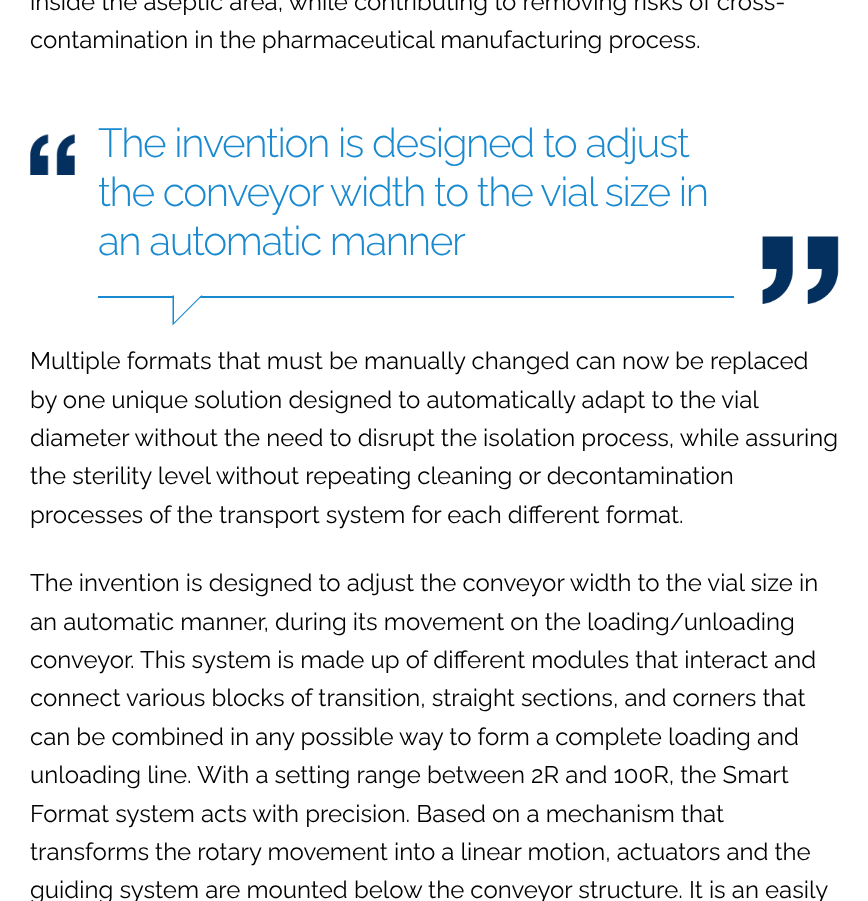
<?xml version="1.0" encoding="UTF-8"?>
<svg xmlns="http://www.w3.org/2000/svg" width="868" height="901">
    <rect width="100%" height="100%" fill="#FFFFFF"/>
    <text font-family="Raleway" font-size="24" fill="#000000">
        <tspan x="30" y="10">inside the aseptic area, while contributing to removing risks of cross-</tspan>
        <tspan x="30" y="48">contamination in the pharmaceutical manufacturing process.</tspan>
    </text>
    <image x="30" y="134" width="45" height="41" href="img_01.png"/>
    <rect x="98" y="296" width="636" height="2" fill="#1A8AD0"/>
    <text font-family="Raleway" font-size="40.5" font-weight="300" letter-spacing="-1.4" fill="#1A8AD0">
        <tspan x="98" y="157">The invention is designed to adjust</tspan>
        <tspan x="98" y="206">the conveyor width to the vial size in</tspan>
        <tspan x="98" y="255">an automatic manner</tspan>
    </text>
    <path d="M 172.5 295.5 H 202.5 L 172.5 325.5 Z" fill="#1A8AD0"/>
    <path d="M 174 292.5 H 204 L 174 322.5 Z" fill="#FFFFFF"/>
    <image x="762" y="236" width="77" height="68" href="img_02.png"/>
    <text font-family="Raleway" font-size="24" fill="#000000">
        <tspan x="30" y="369">Multiple formats that must be manually changed can now be replaced</tspan>
        <tspan x="30" y="408">by one unique solution designed to automatically adapt to the vial</tspan>
        <tspan x="30" y="446">diameter without the need to disrupt the isolation process, while assuring</tspan>
        <tspan x="30" y="484">the sterility level without repeating cleaning or decontamination</tspan>
        <tspan x="30" y="523">processes of the transport system for each different format.</tspan>
    </text>
    <text font-family="Raleway" font-size="24" fill="#000000">
        <tspan x="30" y="591">The invention is designed to adjust the conveyor width to the vial size in</tspan>
        <tspan x="30" y="630">an automatic manner, during its movement on the loading/unloading</tspan>
        <tspan x="30" y="668">conveyor. This system is made up of different modules that interact and</tspan>
        <tspan x="30" y="706">connect various blocks of transition, straight sections, and corners that</tspan>
        <tspan x="30" y="745">can be combined in any possible way to form a complete loading and</tspan>
        <tspan x="30" y="783">unloading line. With a setting range between 2R and 100R, the Smart</tspan>
        <tspan x="30" y="822">Format system acts with precision. Based on a mechanism that</tspan>
        <tspan x="30" y="860">transforms the rotary movement into a linear motion, actuators and the</tspan>
        <tspan x="30" y="898">guiding system are mounted below the conveyor structure. It is an easily</tspan>
    </text>
</svg>
